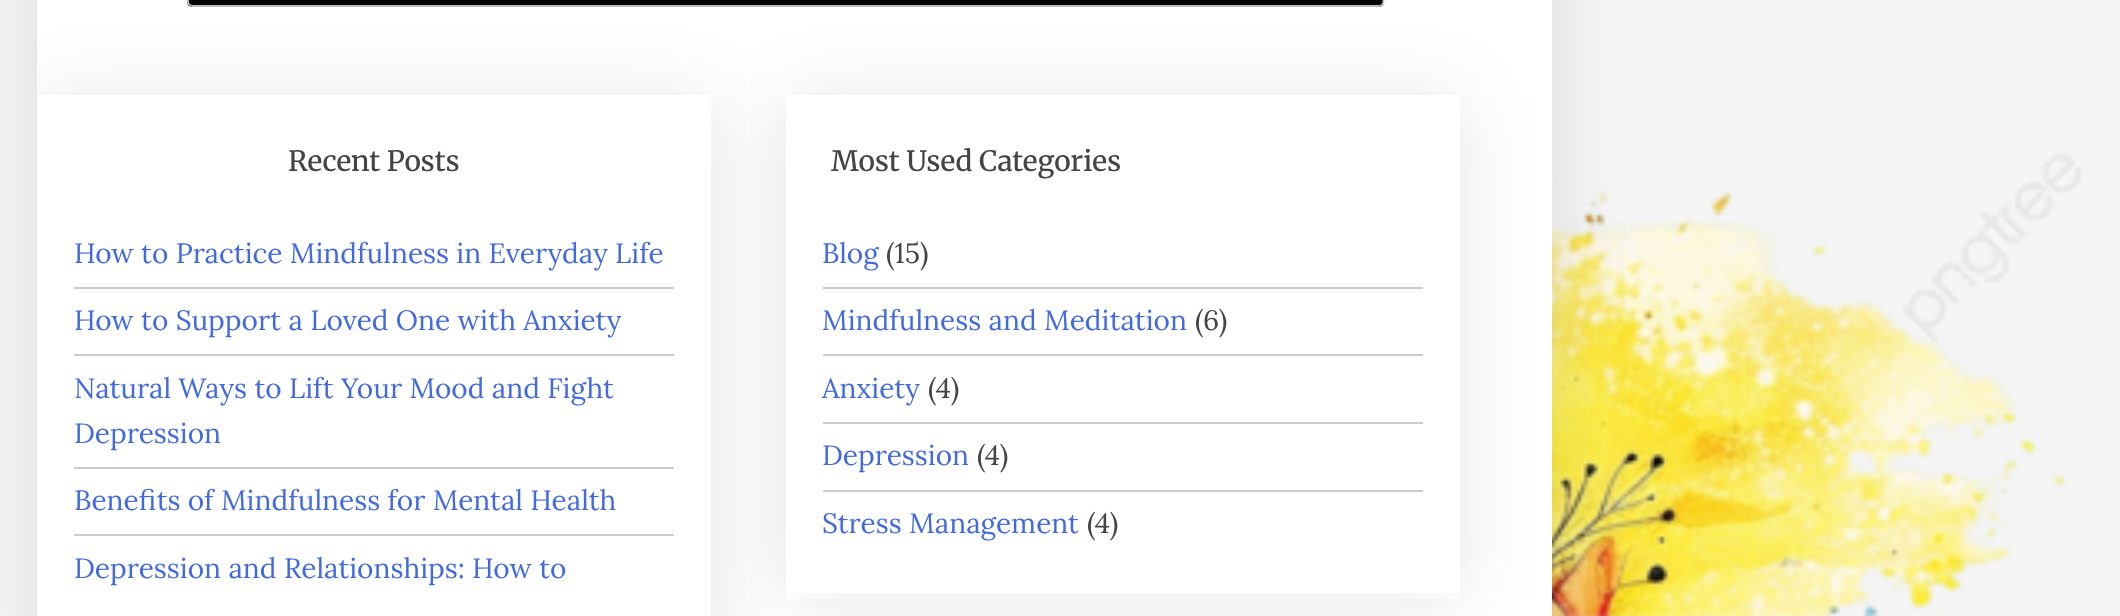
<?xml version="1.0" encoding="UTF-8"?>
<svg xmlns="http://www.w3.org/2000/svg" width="2120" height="616">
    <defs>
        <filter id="blur1" x="-50%" y="-200%" width="200%" height="500%"><feGaussianBlur stdDeviation="39"/></filter>
        <clipPath id="clip1"><rect x="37" y="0" width="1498" height="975"/></clipPath>
    </defs>
    <rect width="100%" height="100%" fill="#FFFFFF"/>
    <image x="0" y="0" width="2120" height="616" href="img_01.png"/>
    <rect x="37" y="-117" width="1515" height="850" fill="#242424" fill-opacity="0.1" filter="url(#blur1)"/>
    <rect x="37" y="0" width="1515" height="616" fill="#FFFFFF"/>
    <g clip-path="url(#clip1)">
        <rect x="37" y="100" width="674" height="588" fill="#242424" fill-opacity="0.1" filter="url(#blur1)"/>
    </g>
    <rect x="37" y="95" width="674" height="521" fill="#FFFFFF"/>
    <rect x="74" y="287" width="600" height="2" fill="#CCCCCC"/>
    <rect x="74" y="354" width="600" height="2" fill="#CCCCCC"/>
    <rect x="74" y="467" width="600" height="2" fill="#CCCCCC"/>
    <rect x="74" y="534" width="600" height="2" fill="#CCCCCC"/>
    <rect x="786" y="100" width="674" height="499" fill="#242424" fill-opacity="0.1" filter="url(#blur1)"/>
    <rect x="187" y="-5" width="1197" height="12" rx="5" fill="#000000"/>
    <path d="M 1382 5 L 1379 6 H 192.5 L 189.5 5" fill="none" stroke="#BBBBBB" stroke-width="1.8"/>
    <path d="M 189.5 5 C 188.5 4 188 3 188 2 V -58 C 188 -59 188.5 -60 189.5 -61 C 190 -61.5 191.5 -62 192.5 -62 H 1379 C 1380 -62 1381.5 -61.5 1382 -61 C 1383 -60 1383.5 -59 1383.5 -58 V 1.5 C 1383.5 3 1383 4 1382 5" fill="none" stroke="#CCCCCC" stroke-width="1.8"/>
    <text x="288" y="171" font-family="Merriweather" font-size="28" font-weight="500" fill="#444444">Recent Posts</text>
    <text x="74" y="263" font-family="Lora" font-size="28" fill="#4169E1">How to Practice Mindfulness in Everyday Life</text>
    <text x="74" y="330" font-family="Lora" font-size="28" fill="#4169E1">How to Support a Loved One with Anxiety</text>
    <text font-family="Lora" font-size="28" fill="#4169E1">
        <tspan x="74" y="398">Natural Ways to Lift Your Mood and Fight</tspan>
        <tspan x="74" y="443">Depression</tspan>
    </text>
    <text x="74" y="510" font-family="Lora" font-size="28" fill="#4169E1">Benefits of Mindfulness for Mental Health</text>
    <text x="74" y="578" font-family="Lora" font-size="28" fill="#4169E1">Depression and Relationships: How to</text>
    <rect x="786" y="95" width="674" height="498" fill="#FFFFFF"/>
    <text x="831" y="171" font-family="Merriweather" font-size="28" font-weight="500" fill="#444444">Most Used Categories</text>
    <rect x="823" y="287" width="600" height="2" fill="#CCCCCC"/>
    <text x="822" y="263" font-family="Lora" font-size="28" fill="#4169E1">Blog</text>
    <text x="886" y="263" font-family="Lora" font-size="28" fill="#444444">(15)</text>
    <rect x="823" y="354" width="600" height="2" fill="#CCCCCC"/>
    <text x="822" y="330" font-family="Lora" font-size="28" fill="#4169E1">Mindfulness and Meditation</text>
    <text x="1195" y="330" font-family="Lora" font-size="28" fill="#444444">(6)</text>
    <rect x="823" y="422" width="600" height="2" fill="#CCCCCC"/>
    <text x="822" y="398" font-family="Lora" font-size="28" fill="#4169E1">Anxiety</text>
    <text x="928" y="398" font-family="Lora" font-size="28" fill="#444444">(4)</text>
    <rect x="823" y="490" width="600" height="2" fill="#CCCCCC"/>
    <text x="822" y="465" font-family="Lora" font-size="28" fill="#4169E1">Depression</text>
    <text x="977" y="465" font-family="Lora" font-size="28" fill="#444444">(4)</text>
    <text x="822" y="533" font-family="Lora" font-size="28" fill="#4169E1">Stress Management</text>
    <text x="1087" y="533" font-family="Lora" font-size="28" fill="#444444">(4)</text>
</svg>
